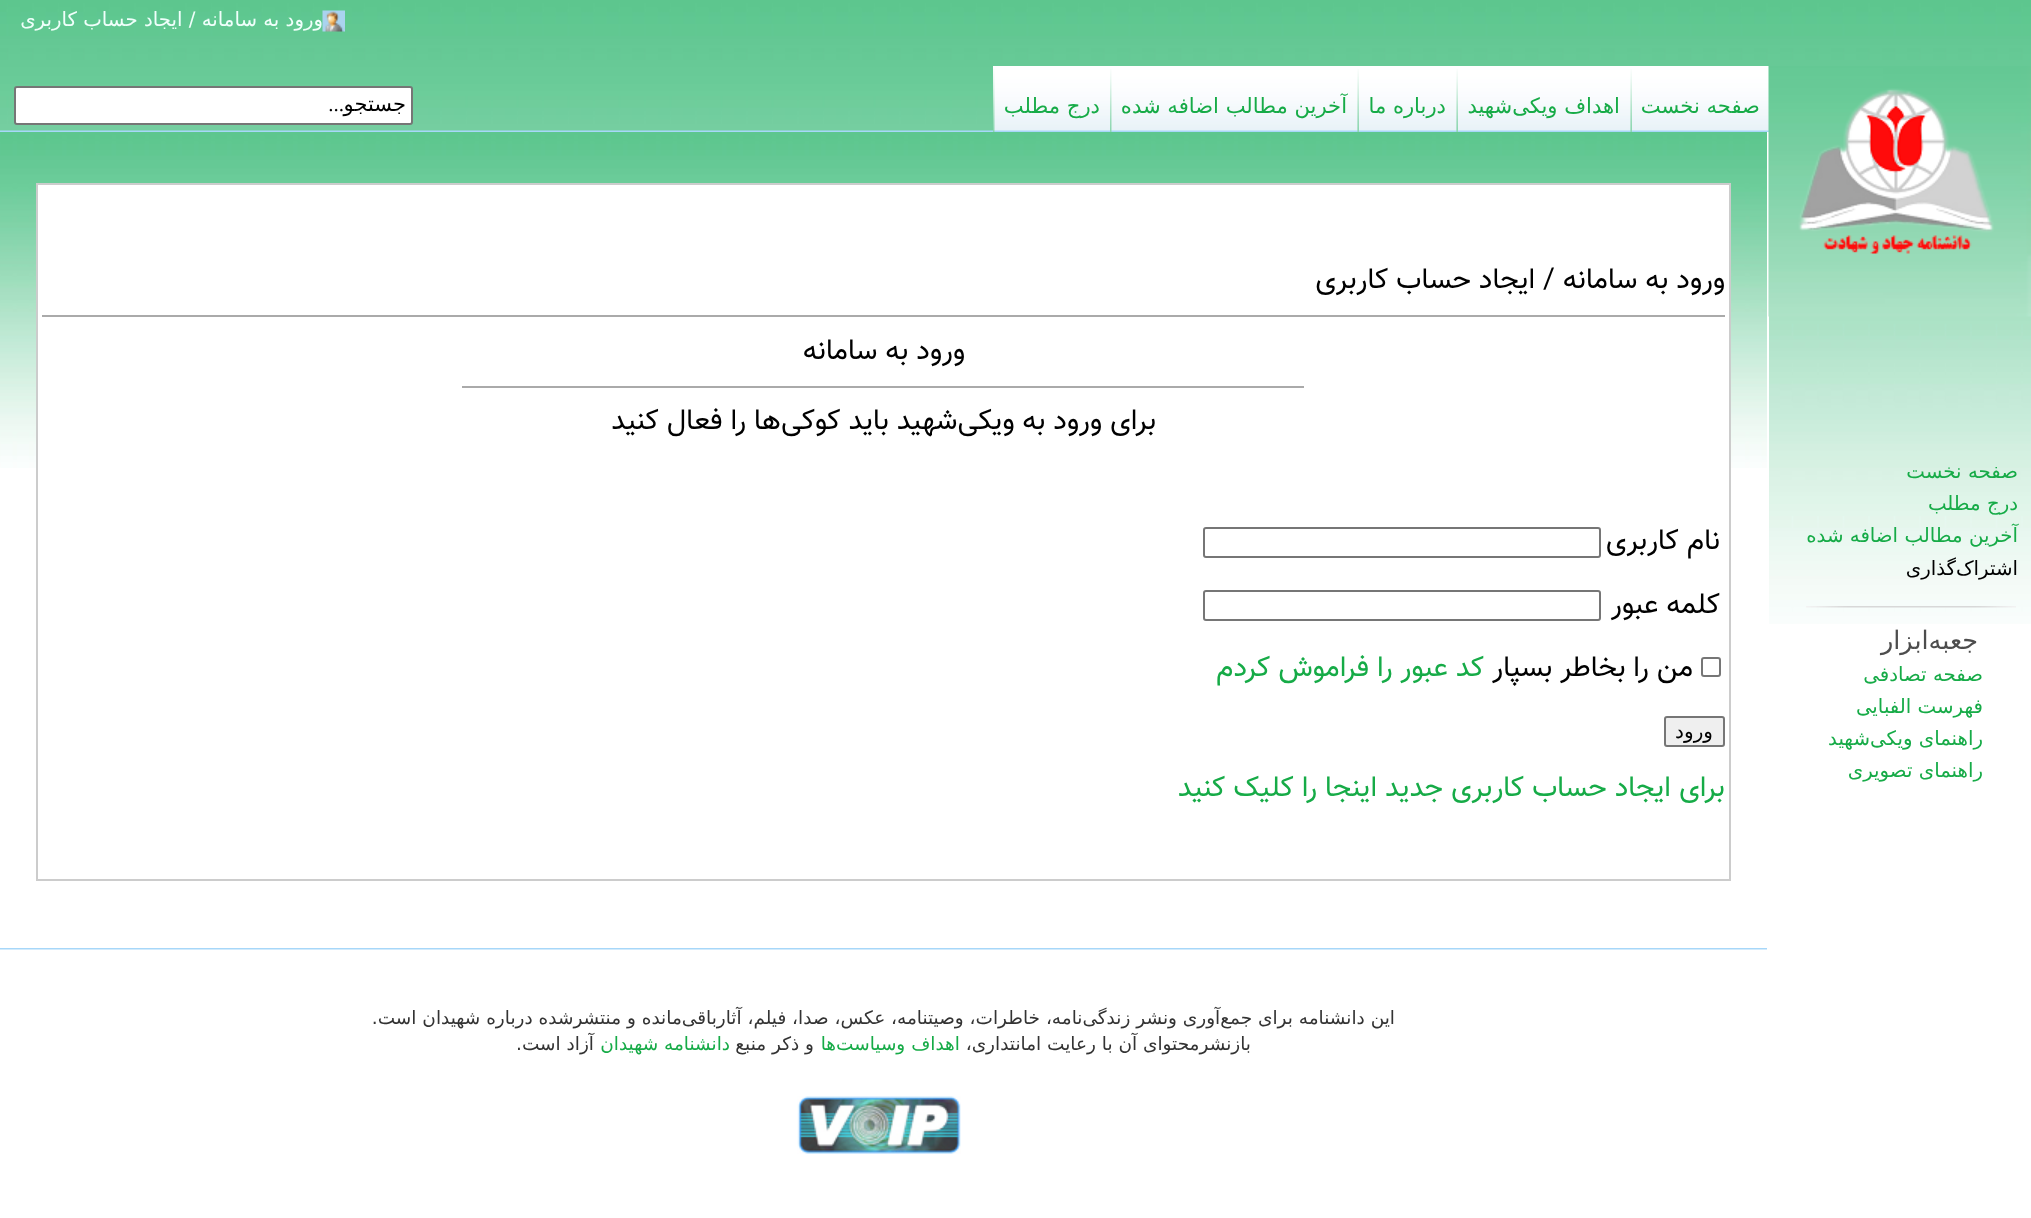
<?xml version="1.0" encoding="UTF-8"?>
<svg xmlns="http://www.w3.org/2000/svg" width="2031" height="1218">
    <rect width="100%" height="100%" fill="#FFFFFF"/>
    <image x="0" y="0" width="2031" height="624" href="img_01.png"/>
    <image x="322" y="10" width="23" height="22" href="img_02.png"/>
    <text x="323" y="26" font-family="DejaVu Sans" font-size="19.75" direction="rtl" fill="#F0FFFB">ورود به سامانه / ایجاد حساب کاربری</text>
    <image x="1357" y="66" width="274" height="66" href="img_03.png"/>
    <image x="1110" y="66" width="248" height="66" href="img_08.png"/>
    <image x="1357" y="66" width="100" height="66" href="img_07.png"/>
    <image x="1456" y="66" width="175" height="66" href="img_06.png"/>
    <image x="1630" y="66" width="139" height="66" href="img_04.png"/>
    <image x="1630" y="69" width="2" height="63" href="img_05.png"/>
    <text x="1760" y="113" font-family="DejaVu Sans" font-size="21.1" direction="rtl" fill="#16AB47">صفحه نخست</text>
    <image x="1456" y="69" width="2" height="63" href="img_05.png"/>
    <text x="1620" y="113" font-family="DejaVu Sans" font-size="21.1" direction="rtl" fill="#16AB47">اهداف ویکی‌شهید</text>
    <image x="1357" y="69" width="2" height="63" href="img_05.png"/>
    <text x="1446" y="113" font-family="DejaVu Sans" font-size="21.1" direction="rtl" fill="#16AB47">درباره ما</text>
    <image x="1110" y="69" width="2" height="63" href="img_09.png"/>
    <text x="1347" y="113" font-family="DejaVu Sans" font-size="21.1" direction="rtl" fill="#16AB47">آخرین مطالب اضافه شده</text>
    <image x="993" y="66" width="117" height="66" href="img_10.png"/>
    <image x="993" y="69" width="2" height="63" href="img_09.png"/>
    <text x="1100" y="113" font-family="DejaVu Sans" font-size="21.1" direction="rtl" fill="#16AB47">درج مطلب</text>
    <rect x="15" y="87" width="397" height="37" rx="2" fill="#FFFFFF" stroke="#767676" stroke-width="2"/>
    <text x="344" y="111" font-family="Liberation Serif" font-size="21" direction="rtl" fill="#000000">...</text>
    <text x="406" y="111" font-family="DejaVu Sans" font-size="21" direction="rtl" fill="#000000">جستجو</text>
    <image x="0" y="130" width="993" height="2" href="img_11.png"/>
    <rect x="1767" y="132" width="2" height="492" fill="#FFFFFF"/>
    <image x="1768" y="66" width="263" height="251" href="img_12.png"/>
    <text font-family="DejaVu Sans" font-size="19.75" direction="rtl" fill="#16AB47">
        <tspan x="2018" y="478">صفحه نخست</tspan>
        <tspan x="2018" y="510">درج مطلب</tspan>
        <tspan x="2018" y="542">آخرین مطالب اضافه شده</tspan>
    </text>
    <text x="2018" y="575" font-family="DejaVu Sans" font-size="19.75" direction="rtl" fill="#000000">اشتراک‌گذاری</text>
    <image x="1806" y="606" width="210" height="2" href="img_13.png"/>
    <text x="1978" y="649" font-family="DejaVu Sans" font-size="25.5" direction="rtl" fill="#4D4D4D">جعبه‌ابزار</text>
    <text font-family="DejaVu Sans" font-size="19.75" direction="rtl" fill="#16AB47">
        <tspan x="1983" y="681">صفحه تصادفی</tspan>
        <tspan x="1983" y="713">فهرست الفبایی</tspan>
        <tspan x="1983" y="745">راهنمای ویکی‌شهید</tspan>
        <tspan x="1983" y="777">راهنمای تصویری</tspan>
    </text>
    <rect x="0" y="468" width="1767" height="156" fill="#FFFFFF"/>
    <image x="0" y="132" width="1767" height="336" href="img_14.png"/>
    <rect x="38" y="185" width="1691" height="283" fill="#FFFFFF"/>
    <rect x="37" y="184" width="1693" height="696" fill="none" stroke="#CCCCCC" stroke-width="2"/>
    <text x="1725" y="288" font-family="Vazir" font-size="28.75" direction="rtl" fill="#000000">ورود به سامانه / ایجاد حساب کاربری</text>
    <rect x="42" y="315" width="1683" height="2" fill="#AAAAAA"/>
    <text x="965" y="359" font-family="Vazir" font-size="28.75" direction="rtl" fill="#000000">ورود به سامانه</text>
    <rect x="462" y="386" width="842" height="2" fill="#AAAAAA"/>
    <text x="1156" y="429" font-family="Vazir" font-size="28.75" direction="rtl" fill="#000000">برای ورود به ویکی‌شهید باید کوکی‌ها را فعال کنید</text>
    <text x="1720" y="549" font-family="Vazir" font-size="28.75" direction="rtl" fill="#000000">نام کاربری</text>
    <rect x="1204" y="528" width="396" height="29" rx="2" fill="none" stroke="#767676" stroke-width="2"/>
    <text x="1720" y="613" font-family="Vazir" font-size="28.75" direction="rtl" fill="#000000">کلمه عبور</text>
    <rect x="1204" y="591" width="396" height="29" rx="2" fill="none" stroke="#767676" stroke-width="2"/>
    <rect x="1702" y="658" width="18" height="18" rx="2" fill="none" stroke="#767676" stroke-width="2"/>
    <text x="1693" y="676" font-family="Vazir" font-size="28.75" direction="rtl" fill="#000000">من را بخاطر بسپار</text>
    <text x="1484" y="676" font-family="Vazir" font-size="28.75" direction="rtl" fill="#16AB47">کد عبور را فراموش کردم</text>
    <rect x="1665" y="717" width="59" height="29" rx="2" fill="#EFEFEF" stroke="#767676" stroke-width="2"/>
    <text x="1713" y="738" font-family="DejaVu Sans" font-size="20" direction="rtl" fill="#000000">ورود</text>
    <text x="1725" y="796" font-family="Vazir" font-size="28.75" direction="rtl" fill="#16AB47">برای ایجاد حساب کاربری جدید اینجا را کلیک کنید</text>
    <image x="0" y="948" width="1767" height="2" href="img_15.png"/>
    <text x="1395" y="1024" font-family="DejaVu Sans" font-size="18.48" direction="rtl" fill="#333333">این دانشنامه برای جمع‌آوری ونشر زندگی‌نامه، خاطرات، وصیتنامه، عکس، صدا، فیلم، آثارباقی‌مانده و منتشرشده درباره شهیدان است.</text>
    <text x="1251" y="1050" font-family="DejaVu Sans" font-size="18.48" direction="rtl" fill="#333333">بازنشرمحتوای آن با رعایت امانتداری،</text>
    <text x="960" y="1050" font-family="DejaVu Sans" font-size="18.48" direction="rtl" fill="#16AB47">اهداف وسیاست‌ها</text>
    <text x="814" y="1050" font-family="DejaVu Sans" font-size="18.48" direction="rtl" fill="#333333">و ذکر منبع</text>
    <text x="730" y="1050" font-family="DejaVu Sans" font-size="18.48" direction="rtl" fill="#16AB47">دانشنامه شهیدان</text>
    <text x="594" y="1050" font-family="DejaVu Sans" font-size="18.48" direction="rtl" fill="#333333">آزاد است.</text>
    <image x="797" y="1096" width="164" height="58" href="img_16.png"/>
</svg>
